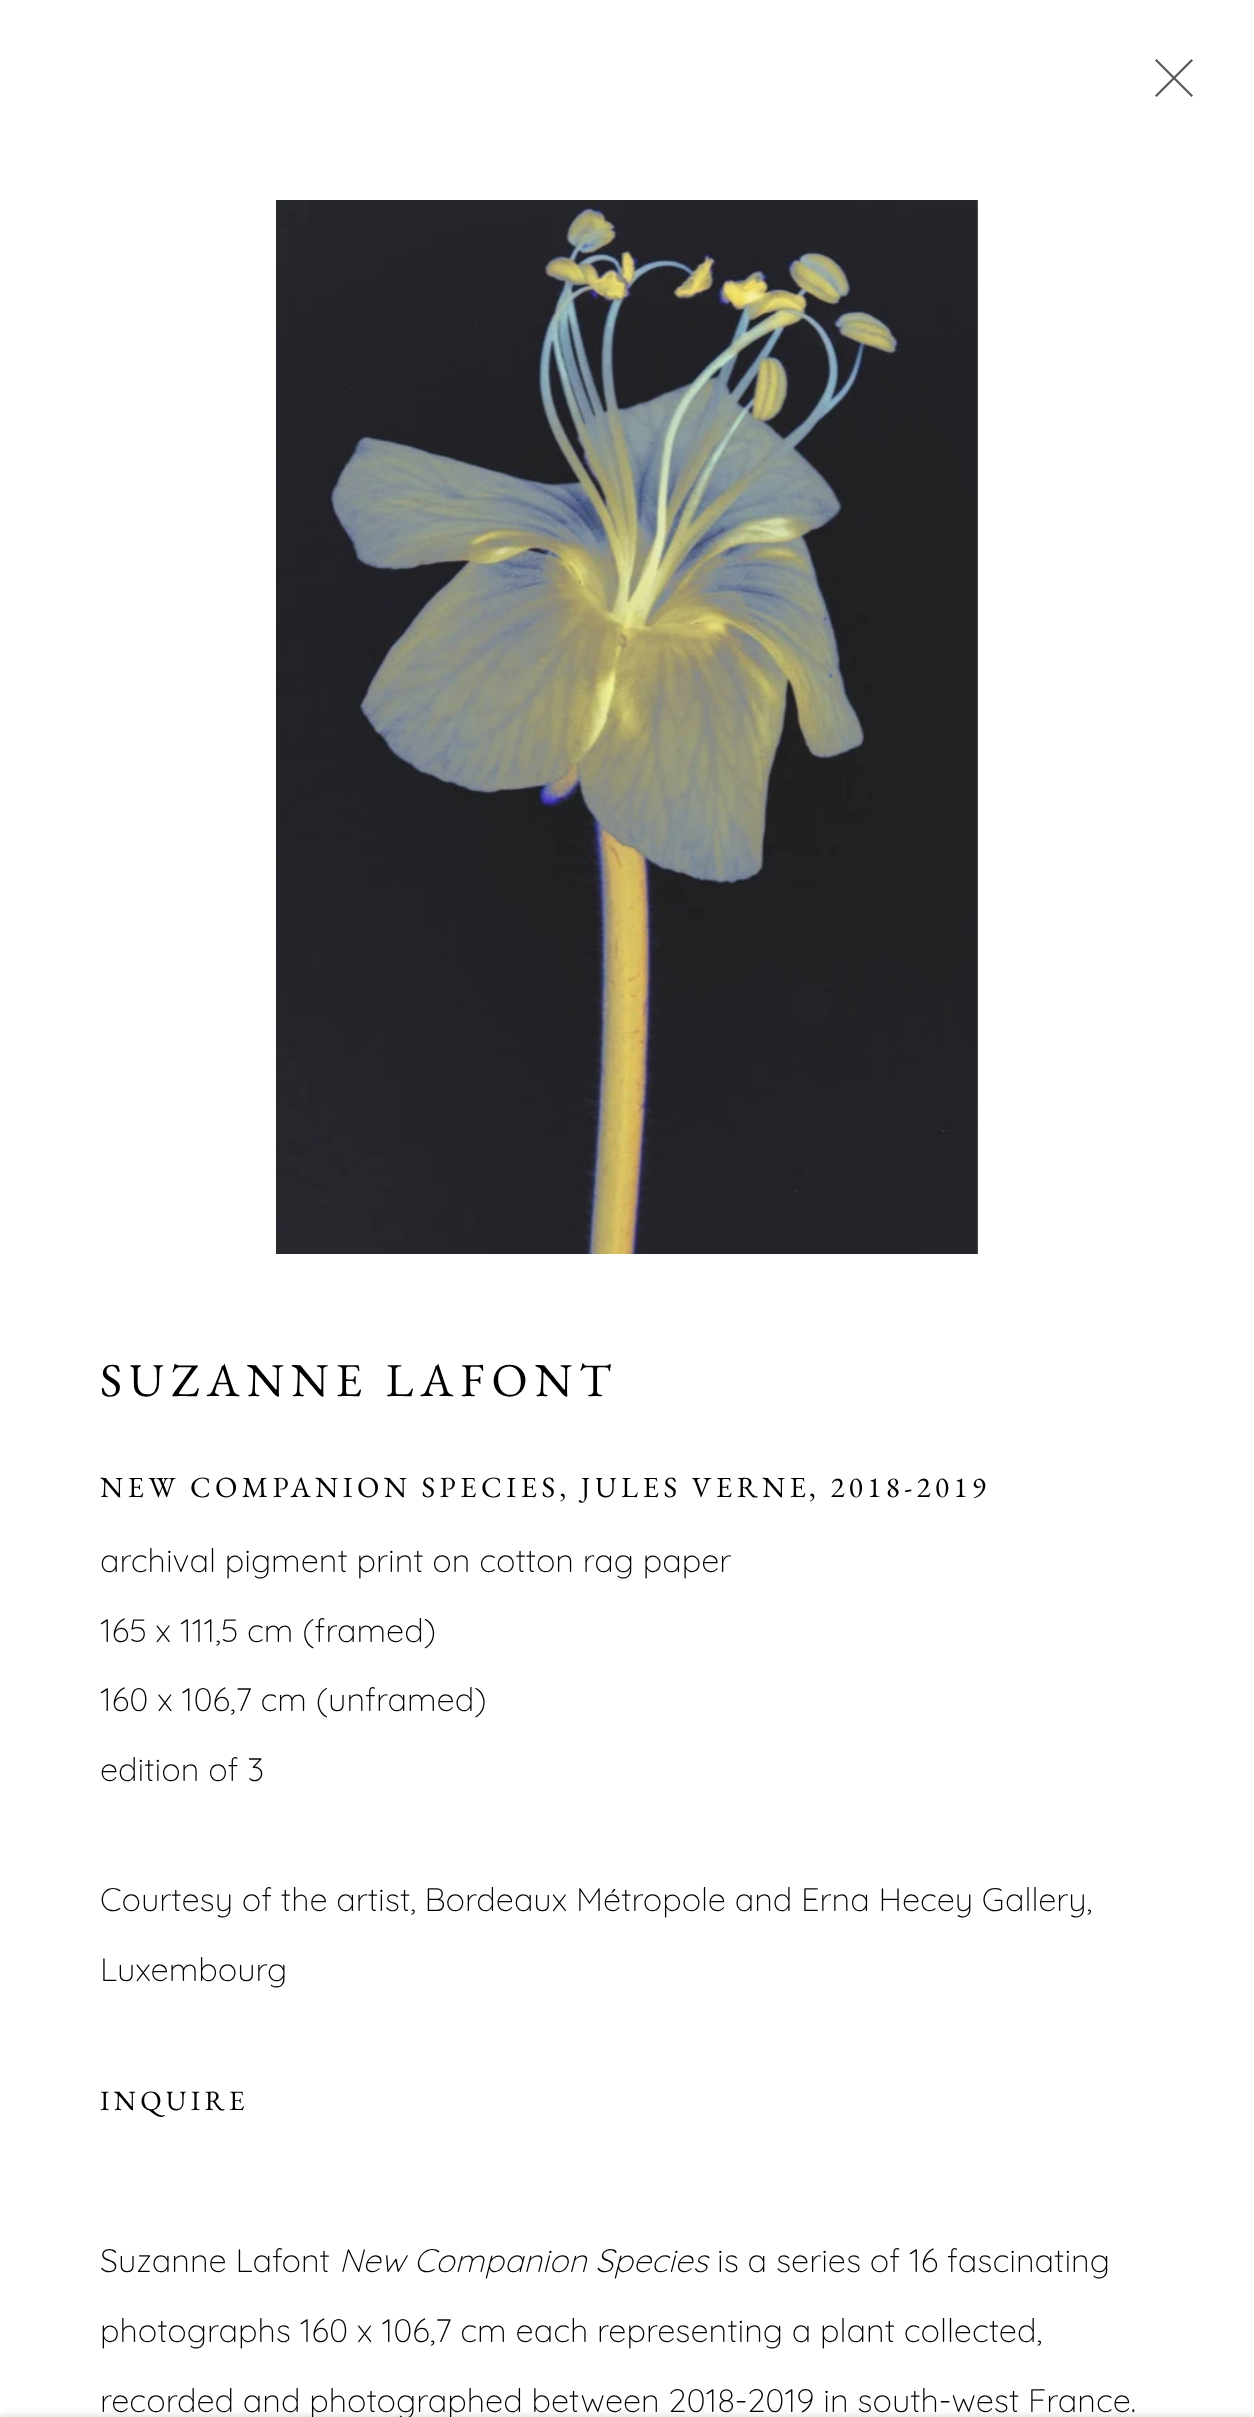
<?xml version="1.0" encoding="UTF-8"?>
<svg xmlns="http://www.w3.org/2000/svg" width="1254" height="2417">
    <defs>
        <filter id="blur1" x="-50%" y="-200%" width="200%" height="500%"><feGaussianBlur stdDeviation="5"/></filter>
    </defs>
    <rect width="100%" height="100%" fill="#FFFFFF"/>
    <path d="M 1193 60.5 L 1191.5 59 L 1174 76.5 L 1156.5 59 L 1155 60.5 L 1172.5 78 L 1155 95.5 L 1156.5 97 L 1174 79.5 L 1191.5 97 L 1193 95.5 L 1175.5 78 Z" fill="#555555"/>
    <image x="276" y="200" width="702" height="1054" href="img_01.png"/>
    <text x="100" y="1396" font-family="EB Garamond" font-size="47.25" letter-spacing="7.1" fill="#000000">SUZANNE LAFONT</text>
    <text x="100" y="1497" font-family="EB Garamond" font-size="29.25" letter-spacing="4.4" fill="#000000">NEW COMPANION SPECIES, JULES VERNE</text>
    <text x="809" y="1497" font-family="EB Garamond" font-size="29.25" letter-spacing="4.4" fill="#000000">, 2018-2019</text>
    <text x="100" y="1572" font-family="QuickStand" font-size="32.6" font-weight="300" fill="#000000">archival pigment print on cotton rag paper</text>
    <text x="100" y="1642" font-family="QuickStand" font-size="32.6" font-weight="300" fill="#000000">165 x 111,5 cm (framed)</text>
    <text x="100" y="1711" font-family="QuickStand" font-size="32.6" font-weight="300" fill="#000000">160 x 106,7 cm (unframed)</text>
    <text x="100" y="1781" font-family="QuickStand" font-size="32.6" font-weight="300" fill="#000000">edition of 3</text>
    <text x="100" y="1911" font-family="QuickStand" font-size="32.6" font-weight="300" fill="#000000">Courtesy of the artist, Bordeaux Métropole and Erna Hecey Gallery,</text>
    <text x="100" y="1981" font-family="QuickStand" font-size="32.6" font-weight="300" fill="#000000">Luxembourg</text>
    <text x="100" y="2110" font-family="EB Garamond" font-size="28" letter-spacing="4.25" fill="#000000">INQUIRE</text>
    <text x="100" y="2272" font-family="QuickStand" font-size="32.6" font-weight="300" fill="#000000">Suzanne Lafont</text>
    <text x="339" y="2272" font-family="QuickStand" font-size="32.6" font-weight="300" font-style="italic" fill="#000000">New Companion Species</text>
    <text x="717" y="2272" font-family="QuickStand" font-size="32.6" font-weight="300" fill="#000000">is a series of 16 fascinating</text>
    <text x="100" y="2342" font-family="QuickStand" font-size="32.6" font-weight="300" fill="#000000">photographs 160 x 106,7 cm each representing a plant collected,</text>
    <text x="100" y="2412" font-family="QuickStand" font-size="32.6" font-weight="300" fill="#000000">recorded and photographed between 2018-2019 in south-west France.</text>
    <rect x="0" y="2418" width="1254" height="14" fill="#000000" fill-opacity="0.23" filter="url(#blur1)"/>
</svg>
